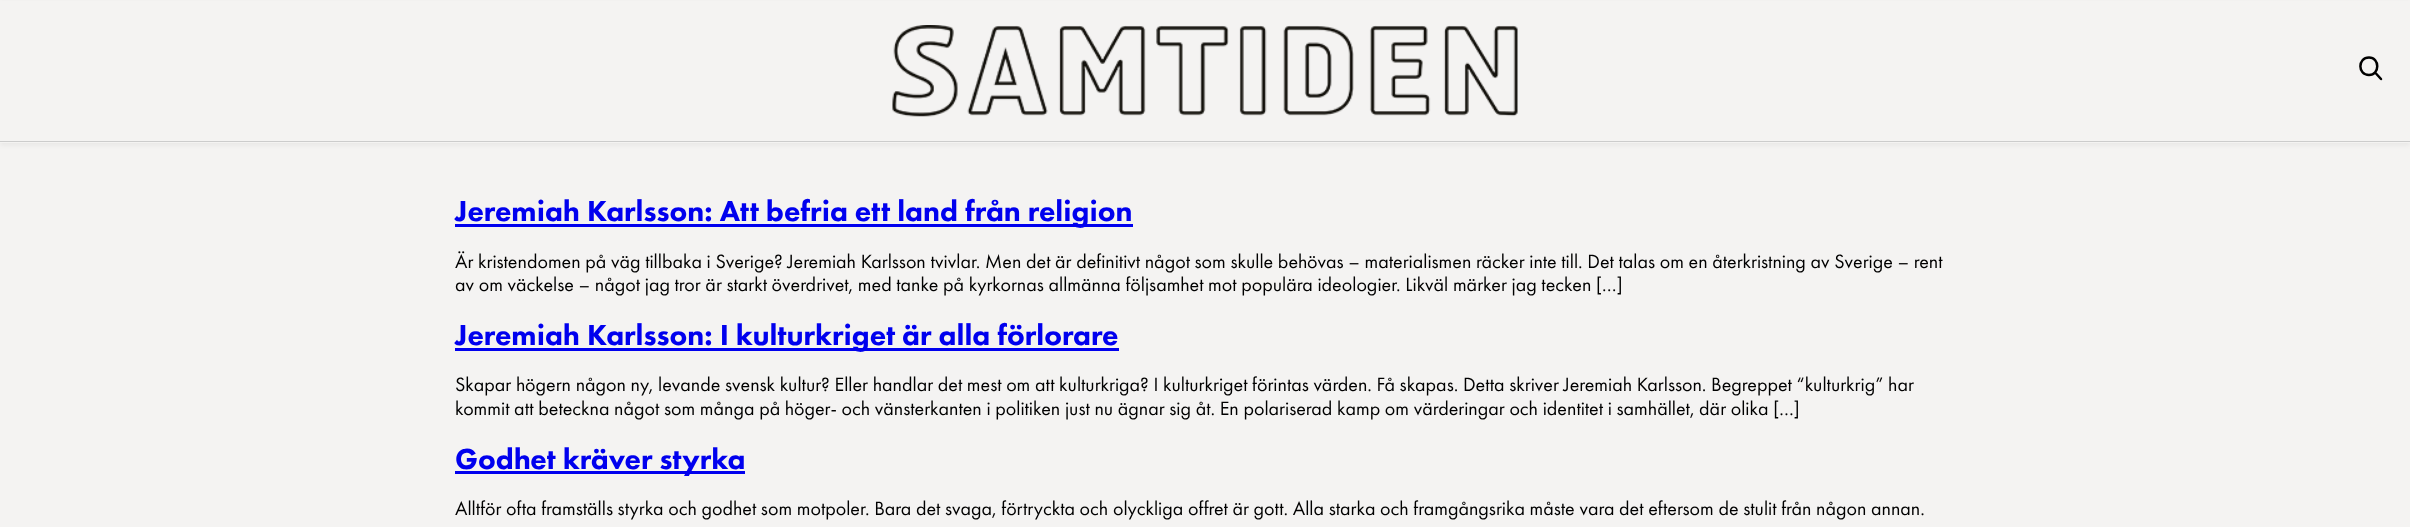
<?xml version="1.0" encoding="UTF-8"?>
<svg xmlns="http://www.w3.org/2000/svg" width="2410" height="527">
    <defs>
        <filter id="blur1" x="-50%" y="-200%" width="200%" height="500%"><feGaussianBlur stdDeviation="2.5"/></filter>
    </defs>
    <rect width="100%" height="100%" fill="#F4F3F2"/>
    <rect x="0" y="3" width="2410" height="142" fill="#000000" fill-opacity="0.05" filter="url(#blur1)"/>
    <rect x="0" y="1" width="2410" height="142" fill="#F4F3F2"/>
    <rect x="0" y="141" width="2410" height="1" fill="#CCCCCC"/>
    <image x="892" y="25" width="626" height="92" href="img_01.png"/>
    <path d="M 2369 57.5 C 2357.5 57.5 2357.5 75 2369 75 C 2380 75 2380 57.5 2369 57.5 Z M 2381 79 L 2376 73.5" fill="none" stroke="#000000" stroke-width="2.5" stroke-linecap="round" stroke-linejoin="round"/>
    <rect x="455" y="224" width="678" height="3" fill="#0000EE"/>
    <text x="455" y="221" font-family="Futura PT" font-size="30" font-weight="900" fill="#0000EE">Jeremiah Karlsson: Att befria ett land från religion</text>
    <text font-family="Futura PT" font-size="20" fill="#000000">
        <tspan x="455" y="268">Är kristendomen på väg tillbaka i Sverige? Jeremiah Karlsson tvivlar. Men det är definitivt något som skulle behövas – materialismen räcker inte till. Det talas om en återkristning av Sverige – rent</tspan>
        <tspan x="455" y="291">av om väckelse – något jag tror är starkt överdrivet, med tanke på kyrkornas allmänna följsamhet mot populära ideologier. Likväl märker jag tecken […]</tspan>
    </text>
    <rect x="455" y="348" width="664" height="3" fill="#0000EE"/>
    <text x="455" y="345" font-family="Futura PT" font-size="30" font-weight="900" fill="#0000EE">Jeremiah Karlsson: I kulturkriget är alla förlorare</text>
    <text font-family="Futura PT" font-size="20" fill="#000000">
        <tspan x="455" y="391">Skapar högern någon ny, levande svensk kultur? Eller handlar det mest om att kulturkriga? I kulturkriget förintas värden. Få skapas. Detta skriver Jeremiah Karlsson. Begreppet “kulturkrig” har</tspan>
        <tspan x="455" y="415">kommit att beteckna något som många på höger- och vänsterkanten i politiken just nu ägnar sig åt. En polariserad kamp om värderingar och identitet i samhället, där olika […]</tspan>
    </text>
    <rect x="455" y="471" width="290" height="3" fill="#0000EE"/>
    <text x="455" y="469" font-family="Futura PT" font-size="30" font-weight="900" fill="#0000EE">Godhet kräver styrka</text>
    <text x="455" y="515" font-family="Futura PT" font-size="20" fill="#000000">Alltför ofta framställs styrka och godhet som motpoler. Bara det svaga, förtryckta och olyckliga offret är gott. Alla starka och framgångsrika måste vara det eftersom de stulit från någon annan.</text>
</svg>
